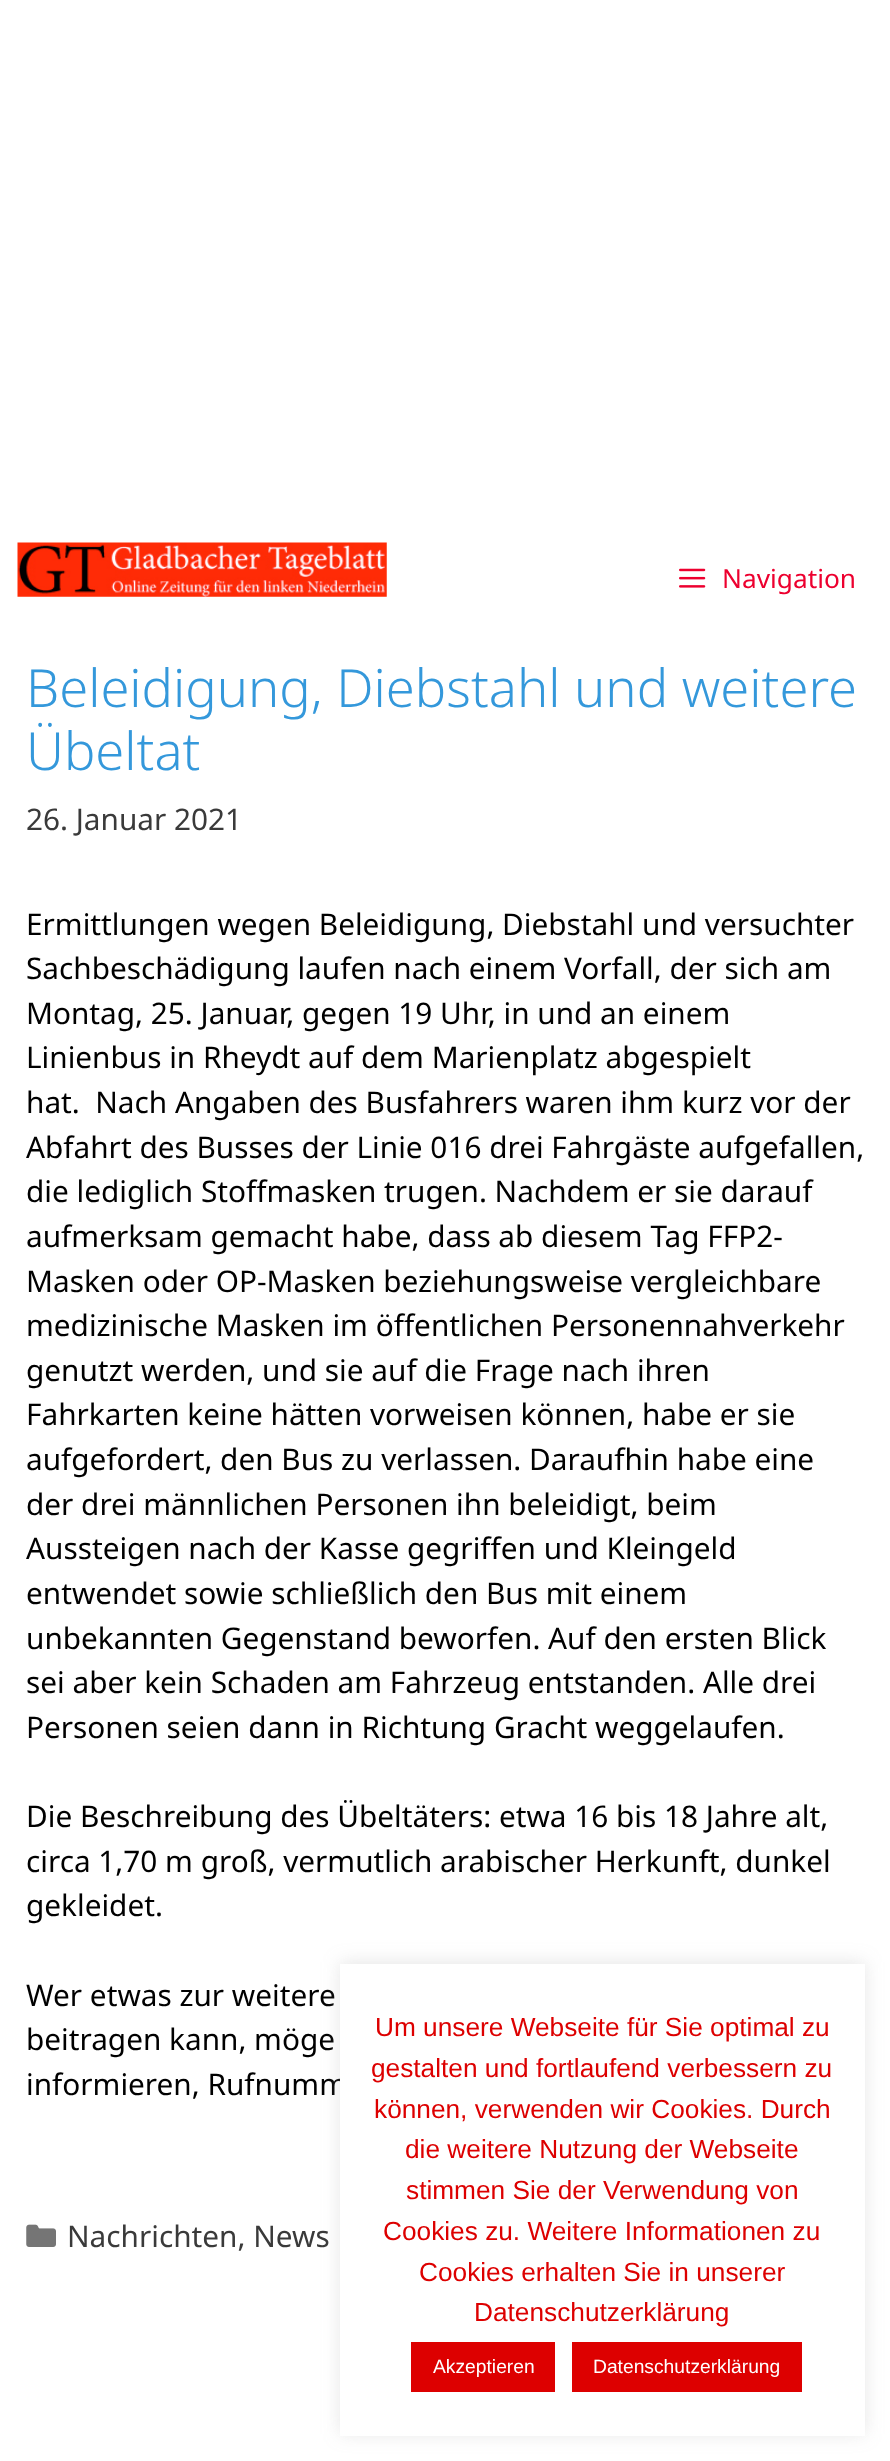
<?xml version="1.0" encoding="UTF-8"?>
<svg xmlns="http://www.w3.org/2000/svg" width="890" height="2461">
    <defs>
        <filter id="blur1" x="-50%" y="-200%" width="200%" height="500%"><feGaussianBlur stdDeviation="9"/></filter>
    </defs>
    <rect width="100%" height="100%" fill="#FFFFFF"/>
    <image x="17" y="542" width="370" height="55" href="img_01.png"/>
    <image x="679" y="568" width="27" height="20" href="img_02.png"/>
    <text x="722" y="588" font-family="Noto Sans" font-size="26.25" fill="#ED002F">Navigation</text>
    <text font-family="Noto Sans" font-size="52.5" font-weight="300" fill="#3498DB">
        <tspan x="26" y="707">Beleidigung, Diebstahl und weitere</tspan>
        <tspan x="26" y="770">Übeltat</tspan>
    </text>
    <text x="26" y="830" font-family="Noto Sans" font-size="29.75" fill="#3A3A3A">26. Januar 2021</text>
    <text font-family="Noto Sans" font-size="29.75" fill="#000000" xml:space="preserve"><tspan x="26" y="935">Ermittlungen wegen Beleidigung, Diebstahl und versuchter</tspan><tspan x="26" y="979">Sachbeschädigung laufen nach einem Vorfall, der sich am</tspan><tspan x="26" y="1024">Montag, 25. Januar, gegen 19 Uhr, in und an einem</tspan><tspan x="26" y="1068">Linienbus in Rheydt auf dem Marienplatz abgespielt</tspan><tspan x="26" y="1113">hat.  Nach Angaben des Busfahrers waren ihm kurz vor der</tspan><tspan x="26" y="1158">Abfahrt des Busses der Linie 016 drei Fahrgäste aufgefallen,</tspan><tspan x="26" y="1202">die lediglich Stoffmasken trugen. Nachdem er sie darauf</tspan><tspan x="26" y="1247">aufmerksam gemacht habe, dass ab diesem Tag FFP2-</tspan><tspan x="26" y="1292">Masken oder OP-Masken beziehungsweise vergleichbare</tspan><tspan x="26" y="1336">medizinische Masken im öffentlichen Personennahverkehr</tspan><tspan x="26" y="1381">genutzt werden, und sie auf die Frage nach ihren</tspan><tspan x="26" y="1425">Fahrkarten keine hätten vorweisen können, habe er sie</tspan><tspan x="26" y="1470">aufgefordert, den Bus zu verlassen. Daraufhin habe eine</tspan><tspan x="26" y="1515">der drei männlichen Personen ihn beleidigt, beim</tspan><tspan x="26" y="1559">Aussteigen nach der Kasse gegriffen und Kleingeld</tspan><tspan x="26" y="1604">entwendet sowie schließlich den Bus mit einem</tspan><tspan x="26" y="1649">unbekannten Gegenstand beworfen. Auf den ersten Blick</tspan><tspan x="26" y="1693">sei aber kein Schaden am Fahrzeug entstanden. Alle drei</tspan><tspan x="26" y="1738">Personen seien dann in Richtung Gracht weggelaufen.</tspan></text>
    <text font-family="Noto Sans" font-size="29.75" fill="#000000">
        <tspan x="26" y="1827">Die Beschreibung des Übeltäters: etwa 16 bis 18 Jahre alt,</tspan>
        <tspan x="26" y="1872">circa 1,70 m groß, vermutlich arabischer Herkunft, dunkel</tspan>
        <tspan x="26" y="1916">gekleidet.</tspan>
    </text>
    <text font-family="Noto Sans" font-size="29.75" fill="#000000">
        <tspan x="26" y="2006">Wer etwas zur weitere</tspan>
        <tspan x="26" y="2050">beitragen kann, möge</tspan>
        <tspan x="26" y="2095">informieren, Rufnumm</tspan>
    </text>
    <image x="26" y="2224" width="30" height="23" href="img_03.png"/>
    <text x="67" y="2247" font-family="Noto Sans" font-size="29.75" fill="#3A3A3A">Nachrichten, News</text>
    <rect x="340" y="1962" width="525" height="472" fill="#ACABAB" fill-opacity="0.3" filter="url(#blur1)"/>
    <rect x="340" y="1964" width="525" height="472" fill="#FFFFFF"/>
    <text x="375" y="2036" font-family="Liberation Sans" font-size="26.25" fill="#DD0000">Um unsere Webseite für Sie optimal zu</text>
    <text x="371" y="2077" font-family="Liberation Sans" font-size="26.25" fill="#DD0000">gestalten und fortlaufend verbessern zu</text>
    <text x="374" y="2118" font-family="Liberation Sans" font-size="26.25" fill="#DD0000">können, verwenden wir Cookies. Durch</text>
    <text x="405" y="2158" font-family="Liberation Sans" font-size="26.25" fill="#DD0000">die weitere Nutzung der Webseite</text>
    <text x="406" y="2199" font-family="Liberation Sans" font-size="26.25" fill="#DD0000">stimmen Sie der Verwendung von</text>
    <text x="383" y="2240" font-family="Liberation Sans" font-size="26.25" fill="#DD0000">Cookies zu. Weitere Informationen zu</text>
    <text x="419" y="2281" font-family="Liberation Sans" font-size="26.25" fill="#DD0000">Cookies erhalten Sie in unserer</text>
    <text x="474" y="2321" font-family="Liberation Sans" font-size="26.25" fill="#DD0000">Datenschutzerklärung</text>
    <rect x="411" y="2342" width="144" height="50" fill="#DD0000"/>
    <text x="433" y="2373" font-family="Liberation Sans" font-size="19.25" fill="#FFFFFF">Akzeptieren</text>
    <rect x="572" y="2342" width="230" height="50" fill="#DD0000"/>
    <text x="593" y="2373" font-family="Liberation Sans" font-size="19.25" fill="#FFFFFF">Datenschutzerklärung</text>
</svg>
